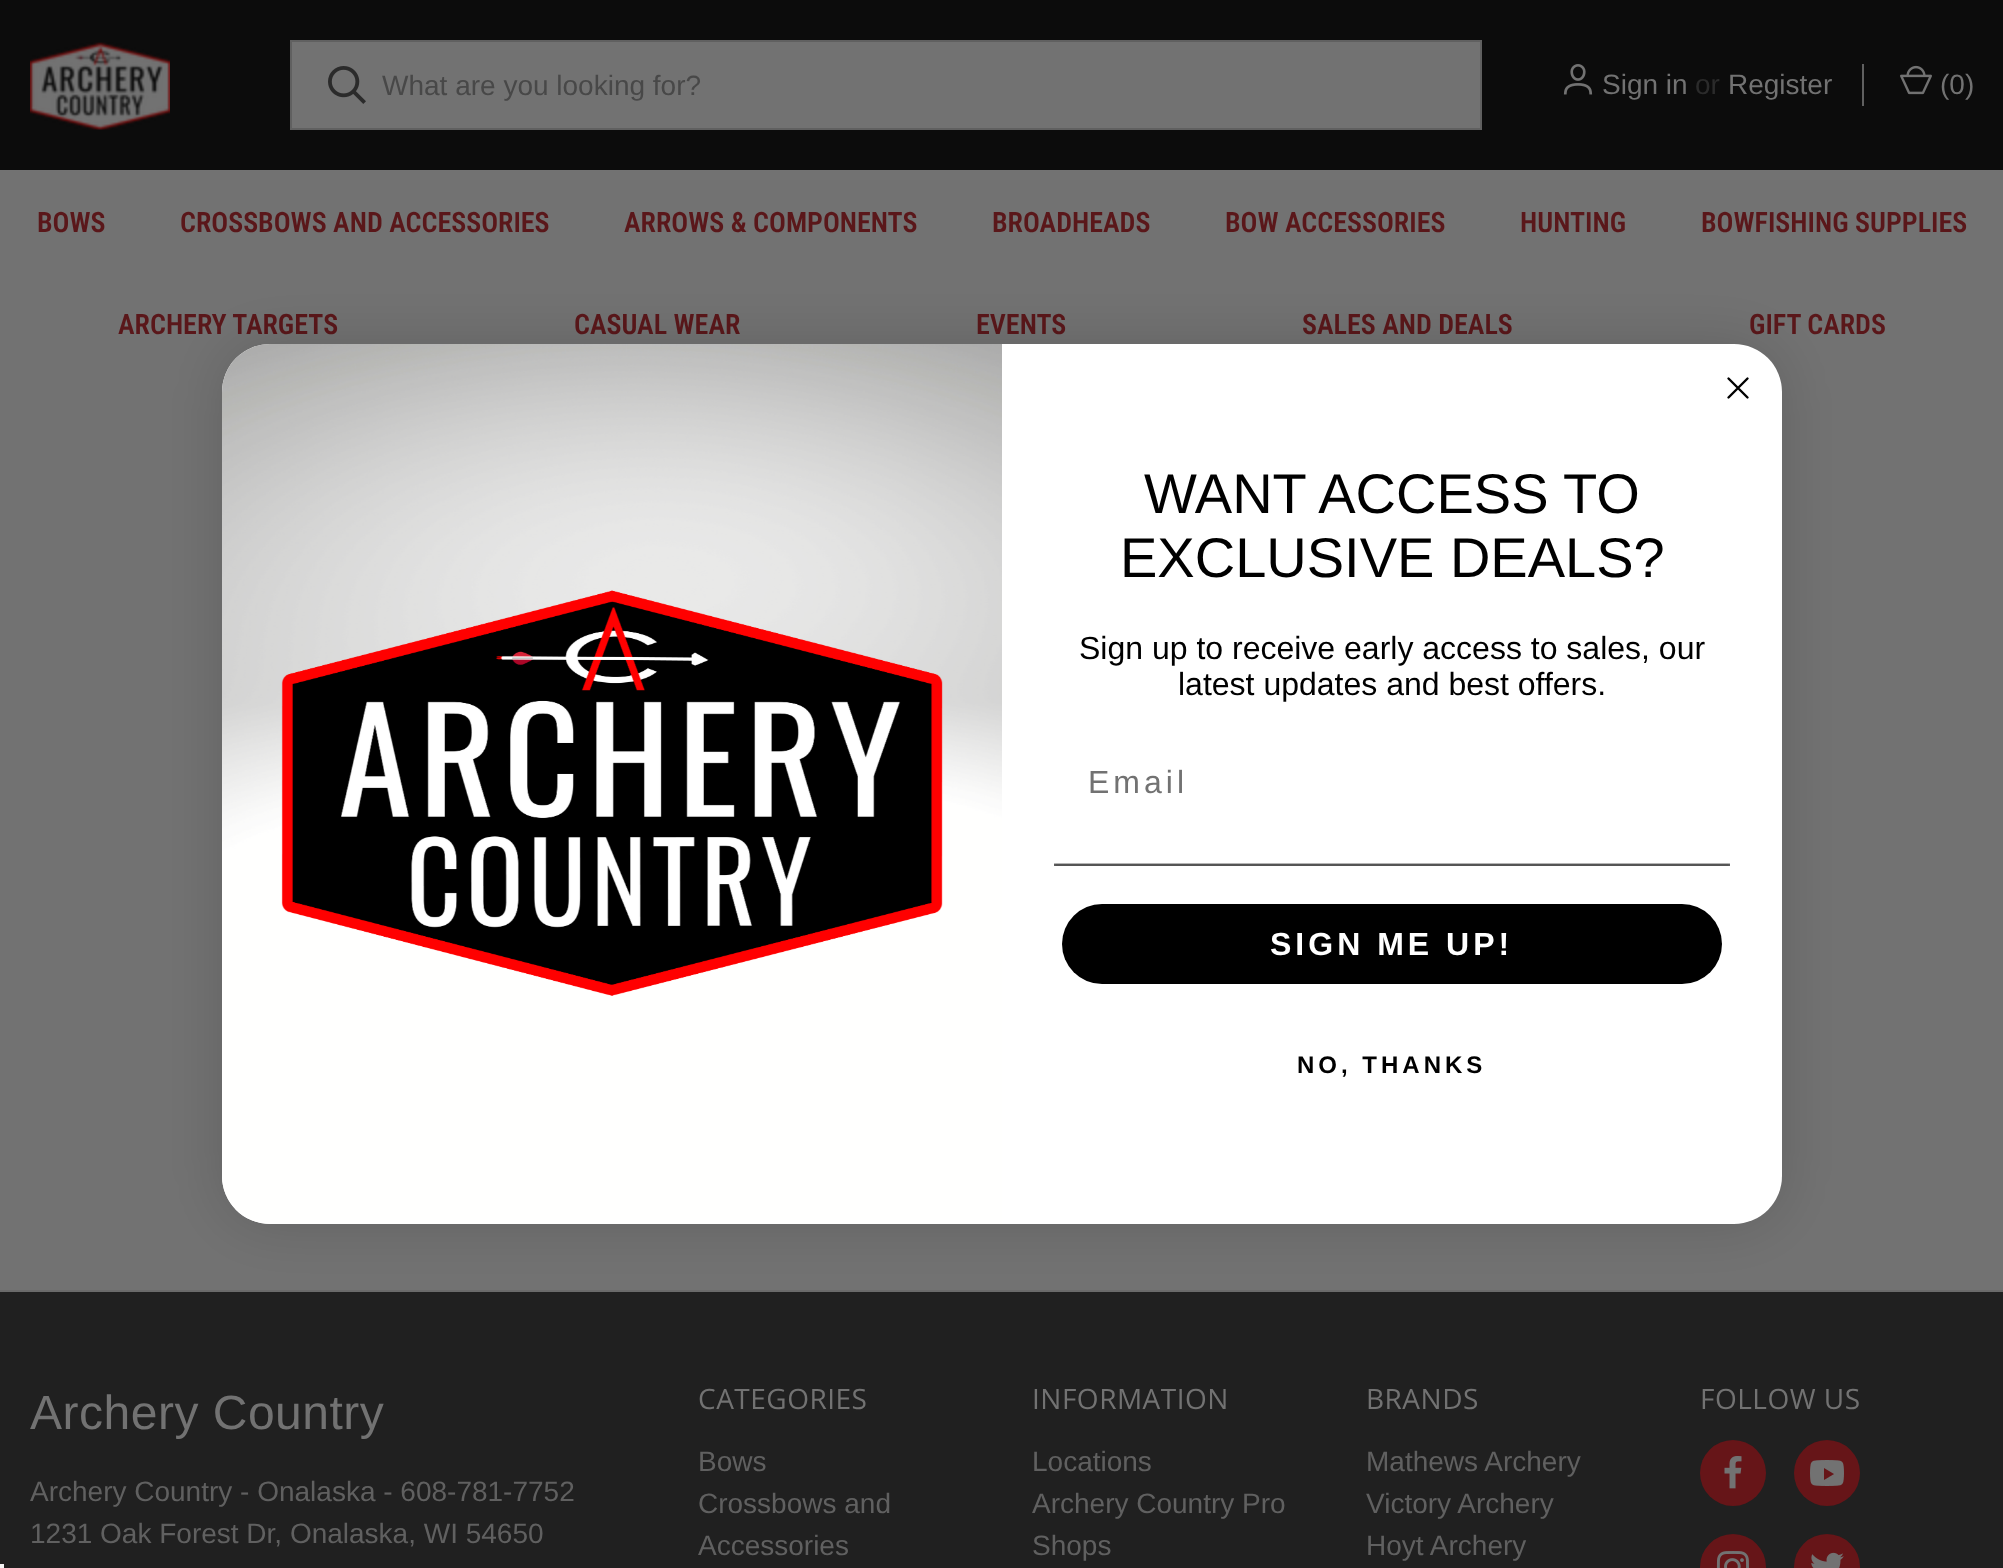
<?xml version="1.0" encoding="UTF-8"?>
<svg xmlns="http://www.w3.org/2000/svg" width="2003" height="1568">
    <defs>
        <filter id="blur1" x="-50%" y="-200%" width="200%" height="500%"><feGaussianBlur stdDeviation="30"/></filter>
    </defs>
    <rect width="100%" height="100%" fill="#727272"/>
    <rect x="0" y="0" width="2003" height="170" fill="#0C0C0C"/>
    <image x="30" y="42" width="140" height="88" href="img_01.png"/>
    <rect x="291" y="41" width="1190" height="88" fill="#727272" stroke="#606060" stroke-width="2"/>
    <image x="328" y="66" width="38" height="38" href="img_02.png"/>
    <text x="382" y="95" font-family="Liberation Sans" font-size="28" fill="#484848">What are you looking for?</text>
    <image x="1563" y="64" width="30" height="31" href="img_03.png"/>
    <text x="1602" y="94" font-family="Liberation Sans" font-size="28" fill="#727272">Sign in</text>
    <text x="1695" y="94" font-family="Liberation Sans" font-size="28" fill="#2B2B2B">or</text>
    <text x="1728" y="94" font-family="Liberation Sans" font-size="28" fill="#727272">Register</text>
    <rect x="1862" y="64" width="2" height="42" fill="#606060"/>
    <image x="1900" y="65" width="32" height="30" href="img_04.png"/>
    <text x="1940" y="94" font-family="Liberation Sans" font-size="28" fill="#727272">(0)</text>
    <text x="37" y="232" font-family="Roboto Condensed" font-size="28" font-weight="600" fill="#5A171A">BOWS</text>
    <text x="180" y="232" font-family="Roboto Condensed" font-size="28" font-weight="600" fill="#5A171A">CROSSBOWS AND ACCESSORIES</text>
    <text x="624" y="232" font-family="Roboto Condensed" font-size="28" font-weight="600" fill="#5A171A">ARROWS &amp; COMPONENTS</text>
    <text x="992" y="232" font-family="Roboto Condensed" font-size="28" font-weight="600" fill="#5A171A">BROADHEADS</text>
    <text x="1225" y="232" font-family="Roboto Condensed" font-size="28" font-weight="600" fill="#5A171A">BOW ACCESSORIES</text>
    <text x="1520" y="232" font-family="Roboto Condensed" font-size="28" font-weight="600" fill="#5A171A">HUNTING</text>
    <text x="1701" y="232" font-family="Roboto Condensed" font-size="28" font-weight="600" fill="#5A171A">BOWFISHING SUPPLIES</text>
    <text x="118" y="334" font-family="Roboto Condensed" font-size="28" font-weight="600" fill="#5A171A">ARCHERY TARGETS</text>
    <text x="574" y="334" font-family="Roboto Condensed" font-size="28" font-weight="600" fill="#5A171A">CASUAL WEAR</text>
    <text x="976" y="334" font-family="Roboto Condensed" font-size="28" font-weight="600" fill="#5A171A">EVENTS</text>
    <text x="1302" y="334" font-family="Roboto Condensed" font-size="28" font-weight="600" fill="#5A171A">SALES AND DEALS</text>
    <text x="1749" y="334" font-family="Roboto Condensed" font-size="28" font-weight="600" fill="#5A171A">GIFT CARDS</text>
    <rect x="0" y="1292" width="2003" height="276" fill="#202020"/>
    <rect x="0" y="1290" width="2003" height="2" fill="#6A6A6A"/>
    <rect x="222" y="344" width="1560" height="880" rx="48" fill="#000000" fill-opacity="0.15" filter="url(#blur1)"/>
    <rect x="222" y="344" width="1560" height="880" rx="48" fill="#FFFFFF"/>
    <path d="M 1728.5 378.5 L 1747.5 397.5 M 1728.5 397.5 L 1747.5 378.5 Z" fill="none" stroke="#000000" stroke-width="2.4" stroke-linecap="round" stroke-linejoin="round"/>
    <image x="222" y="344" width="780" height="880" href="img_05.png"/>
    <text x="1144" y="513" font-family="Liberation Sans" font-size="56" fill="#000000">WANT ACCESS TO</text>
    <text x="1120" y="577" font-family="Liberation Sans" font-size="56" fill="#000000">EXCLUSIVE DEALS?</text>
    <text x="1079" y="659" font-family="Liberation Sans" font-size="32" fill="#000000">Sign up to receive early access to sales, our</text>
    <text x="1178" y="695" font-family="Liberation Sans" font-size="32" fill="#000000">latest updates and best offers.</text>
    <text x="1088" y="793" font-family="Liberation Sans" font-size="32" letter-spacing="4" fill="#727272">Email</text>
    <image x="1054" y="863" width="676" height="3" href="img_06.png"/>
    <rect x="1062" y="904" width="660" height="80" rx="40" fill="#000000"/>
    <text x="1270" y="955" font-family="Liberation Sans" font-size="32" font-weight="700" letter-spacing="4" fill="#FFFFFF">SIGN ME UP!</text>
    <text x="1297" y="1073" font-family="Liberation Sans" font-size="24" font-weight="700" letter-spacing="4" fill="#000000">NO, THANKS</text>
    <text x="30" y="1429" font-family="Liberation Sans" font-size="48" letter-spacing="0.5" fill="#727272">Archery Country</text>
    <text font-family="Liberation Sans" font-size="28" fill="#606060">
        <tspan x="30" y="1501">Archery Country - Onalaska - 608-781-7752</tspan>
        <tspan x="30" y="1543">1231 Oak Forest Dr, Onalaska, WI 54650</tspan>
    </text>
    <text x="698" y="1409" font-family="Open Sans" font-size="28" letter-spacing="0.5" fill="#727272">CATEGORIES</text>
    <text font-family="Liberation Sans" font-size="28" fill="#606060">
        <tspan x="698" y="1471">Bows</tspan>
        <tspan x="698" y="1513">Crossbows and</tspan>
        <tspan x="698" y="1555">Accessories</tspan>
    </text>
    <text x="1032" y="1409" font-family="Open Sans" font-size="28" letter-spacing="0.5" fill="#727272">INFORMATION</text>
    <text font-family="Liberation Sans" font-size="28" fill="#606060">
        <tspan x="1032" y="1471">Locations</tspan>
        <tspan x="1032" y="1513">Archery Country Pro</tspan>
        <tspan x="1032" y="1555">Shops</tspan>
    </text>
    <text x="1366" y="1409" font-family="Open Sans" font-size="28" letter-spacing="0.5" fill="#727272">BRANDS</text>
    <text font-family="Liberation Sans" font-size="28" fill="#606060">
        <tspan x="1366" y="1471">Mathews Archery</tspan>
        <tspan x="1366" y="1513">Victory Archery</tspan>
        <tspan x="1366" y="1555">Hoyt Archery</tspan>
    </text>
    <text x="1700" y="1409" font-family="Open Sans" font-size="28" letter-spacing="0.5" fill="#727272">FOLLOW US</text>
    <circle cx="1733" cy="1473" r="33" fill="#661518"/>
    <image x="1724" y="1456" width="18" height="33" href="img_07.png"/>
    <circle cx="1827" cy="1473" r="33" fill="#661518"/>
    <image x="1810" y="1460" width="34" height="26" href="img_08.png"/>
    <circle cx="1733" cy="1567" r="33" fill="#661518"/>
    <image x="1716" y="1551" width="33" height="17" href="img_09.png"/>
    <circle cx="1827" cy="1567" r="33" fill="#661518"/>
    <image x="1811" y="1552" width="33" height="16" href="img_10.png"/>
    <rect x="0" y="1564" width="4" height="4" fill="#F5F5F5"/>
</svg>
